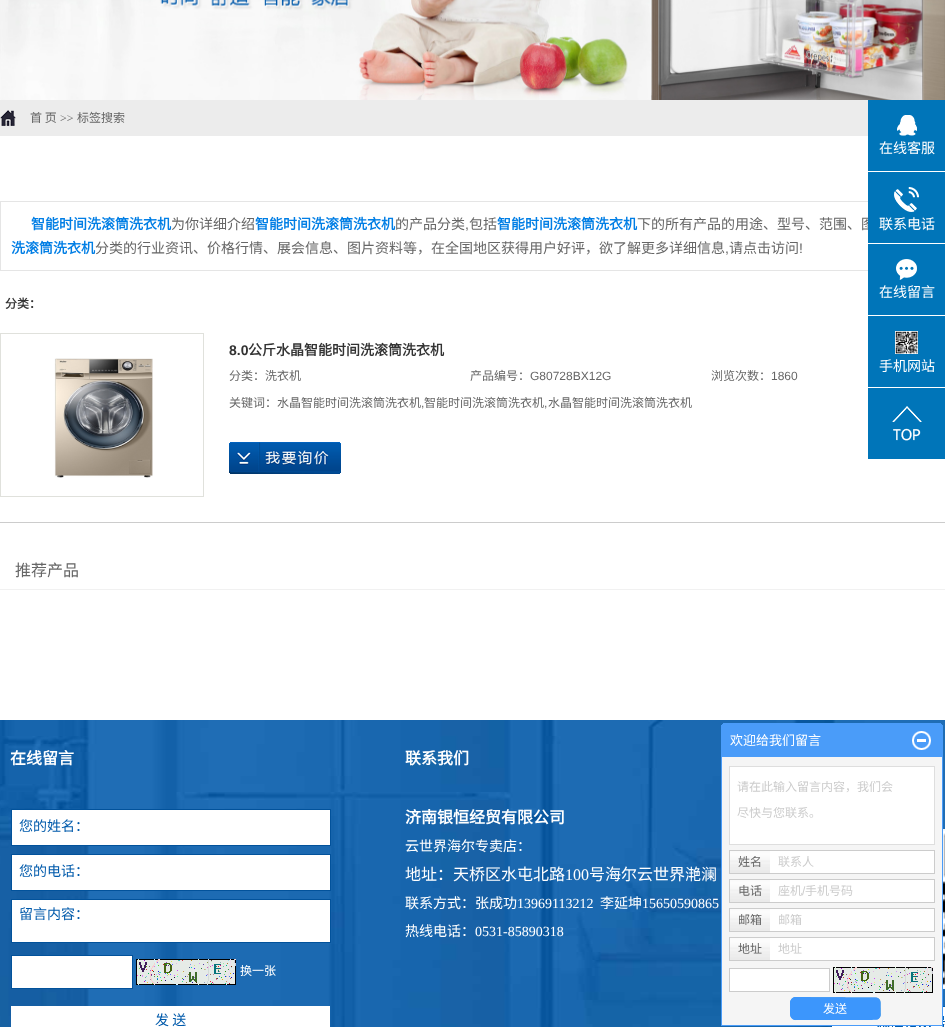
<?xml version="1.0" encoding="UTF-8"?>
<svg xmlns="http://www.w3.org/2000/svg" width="945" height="1027">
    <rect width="100%" height="100%" fill="#FFFFFF"/>
    <image x="0" y="0" width="945" height="100" href="img_01.png"/>
    <rect x="0" y="100" width="868" height="36" fill="#ECECEC"/>
    <image x="0" y="110" width="16" height="16" href="img_02.png"/>
    <text x="30" y="122" font-family="Noto Sans CJK SC" font-size="12" fill="#666666">首 页</text>
    <text x="60" y="122" font-family="Liberation Serif" font-size="12" fill="#666666">&gt;&gt;</text>
    <text x="77" y="122" font-family="Noto Sans CJK SC" font-size="12" fill="#666666">标签搜索</text>
    <rect x="0.5" y="201.5" width="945" height="69" fill="none" stroke="#E5E5E5"/>
    <text x="31" y="229" font-family="Noto Sans CJK SC" font-size="14" font-weight="700" fill="#007EE5">智能时间洗滚筒洗衣机</text>
    <text x="171" y="229" font-family="Noto Sans CJK SC" font-size="14" fill="#666666">为你详细介绍</text>
    <text x="255" y="229" font-family="Noto Sans CJK SC" font-size="14" font-weight="700" fill="#007EE5">智能时间洗滚筒洗衣机</text>
    <text x="395" y="229" font-family="Noto Sans CJK SC" font-size="14" fill="#666666">的产品分类</text>
    <text x="465" y="229" font-family="Liberation Sans" font-size="14" fill="#666666">,</text>
    <text x="469" y="229" font-family="Noto Sans CJK SC" font-size="14" fill="#666666">包括</text>
    <text x="497" y="229" font-family="Noto Sans CJK SC" font-size="14" font-weight="700" fill="#007EE5">智能时间洗滚筒洗衣机</text>
    <text x="637" y="229" font-family="Noto Sans CJK SC" font-size="14" fill="#666666">下的所有产品的用途、型号、范围、图</text>
    <text x="11" y="253" font-family="Noto Sans CJK SC" font-size="14" font-weight="700" fill="#007EE5">洗滚筒洗衣机</text>
    <text x="95" y="253" font-family="Noto Sans CJK SC" font-size="14" fill="#666666">分类的行业资讯、价格行情、展会信息、图片资料等，在全国地区获得用户好评，欲了解更多详细信息</text>
    <text x="725" y="253" font-family="Liberation Sans" font-size="14" fill="#666666">,</text>
    <text x="729" y="253" font-family="Noto Sans CJK SC" font-size="14" fill="#666666">请点击访问</text>
    <text x="799" y="253" font-family="Liberation Sans" font-size="14" fill="#666666">!</text>
    <text x="5" y="308" font-family="Noto Sans CJK SC" font-size="12" font-weight="700" fill="#333333">分类：</text>
    <rect x="0" y="522" width="945" height="1" fill="#CCCCCC"/>
    <rect x="0.5" y="333.5" width="203" height="163" fill="none" stroke="#E0E1DC"/>
    <image x="54" y="358" width="99" height="120" href="img_03.png"/>
    <text x="229" y="355" font-family="Liberation Sans" font-size="14" font-weight="700" fill="#333333">8.0</text>
    <text x="248" y="355" font-family="Noto Sans CJK SC" font-size="14" font-weight="700" fill="#333333">公斤水晶智能时间洗滚筒洗衣机</text>
    <text x="229" y="380" font-family="Noto Sans CJK SC" font-size="12" fill="#666666">分类：洗衣机</text>
    <text x="470" y="380" font-family="Noto Sans CJK SC" font-size="12" fill="#666666">产品编号：</text>
    <text x="530" y="380" font-family="Liberation Sans" font-size="12" fill="#666666">G80728BX12G</text>
    <text x="711" y="380" font-family="Noto Sans CJK SC" font-size="12" fill="#666666">浏览次数：</text>
    <text x="771" y="380" font-family="Liberation Sans" font-size="12" fill="#666666">1860</text>
    <text x="229" y="407" font-family="Noto Sans CJK SC" font-size="12" fill="#666666">关键词：水晶智能时间洗滚筒洗衣机</text>
    <text x="421" y="407" font-family="Liberation Sans" font-size="12" fill="#666666">,</text>
    <text x="424" y="407" font-family="Noto Sans CJK SC" font-size="12" fill="#666666">智能时间洗滚筒洗衣机</text>
    <text x="544" y="407" font-family="Liberation Sans" font-size="12" fill="#666666">,</text>
    <text x="548" y="407" font-family="Noto Sans CJK SC" font-size="12" fill="#666666">水晶智能时间洗滚筒洗衣机</text>
    <image x="229" y="442" width="112" height="32" href="img_04.png"/>
    <rect x="0" y="589" width="945" height="1" fill="#F1F1F1"/>
    <text x="15" y="576" font-family="Noto Sans CJK SC" font-size="16" fill="#666666">推荐产品</text>
    <rect x="868" y="100" width="77" height="71" fill="#0075B9"/>
    <image x="897" y="115" width="20" height="21" href="img_05.png"/>
    <text x="879" y="153" font-family="Noto Sans CJK SC" font-size="14" fill="#FFFFFF">在线客服</text>
    <rect x="868" y="172" width="77" height="71" fill="#0075B9"/>
    <image x="894" y="187" width="25" height="25" href="img_06.png"/>
    <text x="879" y="229" font-family="Noto Sans CJK SC" font-size="14" fill="#FFFFFF">联系电话</text>
    <rect x="868" y="244" width="77" height="71" fill="#0075B9"/>
    <image x="896" y="259" width="21" height="21" href="img_07.png"/>
    <text x="879" y="297" font-family="Noto Sans CJK SC" font-size="14" fill="#FFFFFF">在线留言</text>
    <rect x="868" y="316" width="77" height="71" fill="#0075B9"/>
    <image x="895" y="331" width="23" height="23" href="img_08.png"/>
    <text x="879" y="371" font-family="Noto Sans CJK SC" font-size="14" fill="#FFFFFF">手机网站</text>
    <rect x="868" y="388" width="77" height="71" fill="#0075B9"/>
    <image x="892" y="406" width="30" height="35" href="img_09.png"/>
    <image x="0" y="720" width="945" height="307" href="img_10.png"/>
    <text x="10" y="764" font-family="Noto Sans CJK SC" font-size="16" font-weight="700" fill="#FFFFFF">在线留言</text>
    <rect x="11.5" y="809.5" width="319" height="36" fill="#FFFFFF" stroke="#02529B"/>
    <text x="19" y="831" font-family="Noto Sans CJK SC" font-size="14" fill="#005AAB">您的姓名：</text>
    <rect x="11.5" y="854.5" width="319" height="36" fill="#FFFFFF" stroke="#02529B"/>
    <text x="19" y="876" font-family="Noto Sans CJK SC" font-size="14" fill="#005AAB">您的电话：</text>
    <rect x="11.5" y="899.5" width="319" height="43" fill="#FFFFFF" stroke="#02529B"/>
    <text x="19" y="919" font-family="Noto Sans CJK SC" font-size="14" fill="#005AAB">留言内容：</text>
    <rect x="11.5" y="955.5" width="121" height="33" fill="#FFFFFF" stroke="#02529B"/>
    <image x="136" y="959" width="100" height="26" href="img_11.png"/>
    <text x="240" y="975" font-family="Noto Sans CJK SC" font-size="12" fill="#FFFFFF">换一张</text>
    <rect x="11" y="1006" width="319" height="21" fill="#FFFFFF"/>
    <text x="155" y="1025" font-family="Noto Sans CJK SC" font-size="14" fill="#005AAB">发 送</text>
    <text x="405" y="764" font-family="Noto Sans CJK SC" font-size="16" font-weight="700" fill="#FFFFFF">联系我们</text>
    <text x="405" y="823" font-family="Noto Sans CJK SC" font-size="16" font-weight="700" fill="#FFFFFF">济南银恒经贸有限公司</text>
    <text x="405" y="851" font-family="Noto Sans CJK SC" font-size="14" fill="#FFFFFF">云世界海尔专卖店：</text>
    <text x="405" y="880" font-family="Noto Sans CJK SC" font-size="16" fill="#FFFFFF">地址：天桥区水屯北路</text>
    <text x="565" y="880" font-family="Liberation Serif" font-size="16" fill="#FFFFFF">100</text>
    <text x="589" y="880" font-family="Noto Sans CJK SC" font-size="16" fill="#FFFFFF">号海尔云世界滟澜</text>
    <text x="405" y="908" font-family="Noto Sans CJK SC" font-size="14" fill="#FFFFFF">联系方式：张成功</text>
    <text x="517" y="908" font-family="Liberation Serif" font-size="14" fill="#FFFFFF">13969113212</text>
    <text x="600" y="908" font-family="Noto Sans CJK SC" font-size="14" fill="#FFFFFF">李延坤</text>
    <text x="642" y="908" font-family="Liberation Serif" font-size="14" fill="#FFFFFF">15650590865</text>
    <text x="405" y="936" font-family="Noto Sans CJK SC" font-size="14" fill="#FFFFFF">热线电话：</text>
    <text x="475" y="936" font-family="Liberation Serif" font-size="14" fill="#FFFFFF">0531-85890318</text>
    <image x="943" y="829" width="2" height="160" href="img_12.png"/>
    <image x="831" y="1006" width="114" height="21" href="img_13.png"/>
    <rect x="723" y="723" width="218" height="1" fill="#4A9CF9"/>
    <rect x="722" y="724" width="220" height="1" fill="#4A9CF9"/>
    <rect x="721" y="725" width="222" height="31" fill="#4A9CF9"/>
    <text x="730" y="745" font-family="Noto Sans CJK SC" font-size="13" fill="#FFFFFF">欢迎给我们留言</text>
    <image x="912" y="731" width="19" height="19" href="img_14.png"/>
    <rect x="721.5" y="756.5" width="221" height="269" fill="#F5F5F5" stroke="#4A9CF9"/>
    <rect x="729.5" y="766.5" width="205" height="78" fill="#FFFFFF" stroke="#DEDEDE"/>
    <text x="737" y="791" font-family="Noto Sans CJK SC" font-size="12" fill="#CCCCCC">请在此输入留言内容，我们会</text>
    <text x="737" y="817" font-family="Noto Sans CJK SC" font-size="12" fill="#CCCCCC">尽快与您联系。</text>
    <rect x="770" y="851" width="164" height="22" fill="#FFFFFF"/>
    <rect x="729.5" y="850.5" width="205" height="23" fill="none" stroke="#CCCCCC"/>
    <image x="730" y="851" width="40" height="22" href="img_15.png"/>
    <text x="738" y="866" font-family="Noto Sans CJK SC" font-size="12" fill="#666666">姓名</text>
    <text x="778" y="866" font-family="Noto Sans CJK SC" font-size="12" fill="#CCCCCC">联系人</text>
    <rect x="770" y="880" width="164" height="22" fill="#FFFFFF"/>
    <rect x="729.5" y="879.5" width="205" height="23" fill="none" stroke="#CCCCCC"/>
    <image x="730" y="880" width="40" height="22" href="img_15.png"/>
    <text x="738" y="895" font-family="Noto Sans CJK SC" font-size="12" fill="#666666">电话</text>
    <text x="778" y="895" font-family="Noto Sans CJK SC" font-size="12" fill="#CCCCCC">座机</text>
    <text x="802" y="895" font-family="Liberation Sans" font-size="12" fill="#CCCCCC">/</text>
    <text x="805" y="895" font-family="Noto Sans CJK SC" font-size="12" fill="#CCCCCC">手机号码</text>
    <rect x="770" y="909" width="164" height="22" fill="#FFFFFF"/>
    <rect x="729.5" y="908.5" width="205" height="23" fill="none" stroke="#CCCCCC"/>
    <image x="730" y="909" width="40" height="22" href="img_15.png"/>
    <text x="738" y="924" font-family="Noto Sans CJK SC" font-size="12" fill="#666666">邮箱</text>
    <text x="778" y="924" font-family="Noto Sans CJK SC" font-size="12" fill="#CCCCCC">邮箱</text>
    <rect x="770" y="938" width="164" height="22" fill="#FFFFFF"/>
    <rect x="729.5" y="937.5" width="205" height="23" fill="none" stroke="#CCCCCC"/>
    <image x="730" y="938" width="40" height="22" href="img_15.png"/>
    <text x="738" y="953" font-family="Noto Sans CJK SC" font-size="12" fill="#666666">地址</text>
    <text x="778" y="953" font-family="Noto Sans CJK SC" font-size="12" fill="#CCCCCC">地址</text>
    <rect x="729.5" y="968.5" width="100" height="23" fill="#FFFFFF" stroke="#CCCCCC"/>
    <image x="833" y="967" width="100" height="26" href="img_11.png"/>
    <image x="790" y="997" width="91" height="24" href="img_16.png"/>
    <text x="823" y="1013" font-family="Noto Sans CJK SC" font-size="12" fill="#FFFFFF">发送</text>
</svg>
